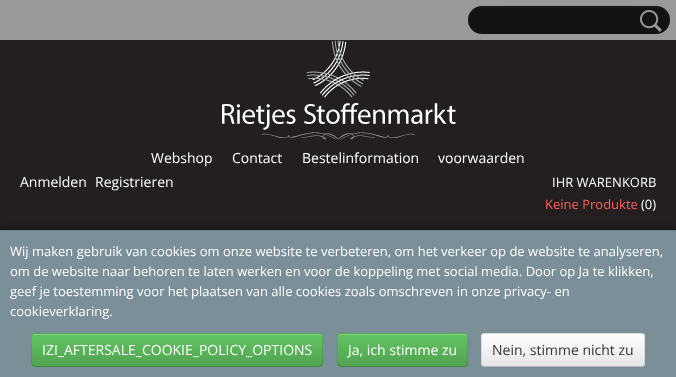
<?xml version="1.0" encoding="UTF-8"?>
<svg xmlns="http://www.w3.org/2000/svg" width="676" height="377">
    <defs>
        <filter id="blur1" x="-50%" y="-200%" width="200%" height="500%"><feGaussianBlur stdDeviation="3.5"/></filter>
        <clipPath id="clip1"><rect x="31" y="333" width="292" height="34" rx="4"/></clipPath>
        <linearGradient id="g1" gradientUnits="userSpaceOnUse" x1="177" y1="334" x2="177" y2="366"><stop offset="0" stop-color="#62C462"/><stop offset="1" stop-color="#51A351"/></linearGradient>
        <clipPath id="clip2"><rect x="337" y="333" width="131" height="34" rx="4"/></clipPath>
        <linearGradient id="g2" gradientUnits="userSpaceOnUse" x1="403" y1="334" x2="403" y2="366"><stop offset="0" stop-color="#62C462"/><stop offset="1" stop-color="#51A351"/></linearGradient>
        <clipPath id="clip3"><rect x="481" y="333" width="164" height="34" rx="4"/></clipPath>
        <linearGradient id="g3" gradientUnits="userSpaceOnUse" x1="563" y1="334" x2="563" y2="366"><stop offset="0" stop-color="#FFFFFF"/><stop offset="1" stop-color="#E6E6E6"/></linearGradient>
    </defs>
    <rect width="100%" height="100%" fill="#231F20"/>
    <rect x="0" y="0" width="676" height="40" fill="#999999"/>
    <rect x="468" y="6" width="202" height="28" rx="14" fill="#121212"/>
    <path d="M 482 8 H 656 C 663 8 669 14 669 21 C 670 0 635 7 627 7 H 511 C 503 7 468 0 469 21 C 469 14 475 8 482 8 Z" fill="#181919"/>
    <image x="640" y="10" width="22" height="22" href="img_01.png"/>
    <image x="222" y="40" width="234" height="100" href="img_02.png"/>
    <text x="151" y="163" font-family="Open Sans" font-size="14" fill="#FFFFFF">Webshop</text>
    <text x="232" y="163" font-family="Open Sans" font-size="14" fill="#FFFFFF">Contact</text>
    <text x="302" y="163" font-family="Open Sans" font-size="14" fill="#FFFFFF">Bestelinformation</text>
    <text x="438" y="163" font-family="Open Sans" font-size="14" fill="#FFFFFF">voorwaarden</text>
    <text x="20" y="187" font-family="Open Sans" font-size="14" fill="#FFFFFF">Anmelden</text>
    <text x="95" y="187" font-family="Open Sans" font-size="14" fill="#FFFFFF">Registrieren</text>
    <text x="552" y="187" font-family="Open Sans" font-size="13" fill="#FFFFFF">IHR WARENKORB</text>
    <text x="545" y="209" font-family="Open Sans" font-size="13" fill="#FF5E5B">Keine Produkte</text>
    <text x="641" y="209" font-family="Open Sans" font-size="13" fill="#FFFFFF">(0)</text>
    <rect x="0" y="227" width="676" height="147" fill="#000000" fill-opacity="0.3" filter="url(#blur1)"/>
    <rect x="0" y="231" width="676" height="146" fill="#7A8F98"/>
    <rect x="0" y="230" width="676" height="1" fill="#697E87"/>
    <text font-family="Open Sans" font-size="13" fill="#FFFFFF">
        <tspan x="10" y="256">Wij maken gebruik van cookies om onze website te verbeteren, om het verkeer op de website te analyseren,</tspan>
        <tspan x="10" y="276">om de website naar behoren te laten werken en voor de koppeling met social media. Door op Ja te klikken,</tspan>
        <tspan x="10" y="296">geef je toestemming voor het plaatsen van alle cookies zoals omschreven in onze privacy- en</tspan>
        <tspan x="10" y="316">cookieverklaring.</tspan>
    </text>
    <rect x="31" y="333" width="292" height="34" rx="4" fill="#5BB75B"/>
    <g clip-path="url(#clip1)">
        <rect x="31" y="334" width="292" height="32" fill="url(#g1)"/>
    </g>
    <path d="M 35 335 H 319 C 321 335 322 336 322 338 C 322 336 321 334 319 334 H 35 C 33 334 32 336 32 338 C 32 336 33 335 35 335 Z" fill="#81CF81"/>
    <path d="M 321.5 365.5 L 319 366.5 H 35 L 32.5 365.5" fill="none" stroke="#000000" stroke-opacity="0.25"/>
    <path d="M 32.5 365.5 C 30.5 363 31.5 349 31.5 345.5 C 31.5 343 29.5 333.5 35 333.5 H 319 C 324.5 333.5 322.5 343 322.5 345.5 C 322.5 349 323.5 363 321.5 365.5" fill="none" stroke="#000000" stroke-opacity="0.1"/>
    <text x="42" y="355" font-family="Open Sans" font-size="14" fill="#FFFFFF">IZI_AFTERSALE_COOKIE_POLICY_OPTIONS</text>
    <rect x="337" y="333" width="131" height="34" rx="4" fill="#5BB75B"/>
    <g clip-path="url(#clip2)">
        <rect x="337" y="334" width="131" height="32" fill="url(#g2)"/>
    </g>
    <path d="M 341 335 H 464 C 466 335 467 336 467 338 C 467 336 467 334 465 334 H 341 C 339 334 338 336 338 338 C 338 336 339 335 341 335 Z" fill="#81CF81"/>
    <path d="M 466.5 365.5 C 466 366 465 366.5 464 366.5 H 341 C 340 366.5 339 366 338.5 365.5" fill="none" stroke="#000000" stroke-opacity="0.25"/>
    <path d="M 338.5 365.5 C 336 363 337.5 357 337.5 354.5 C 337.5 328.5 333 333.5 361.5 333.5 H 443.5 C 472 333.5 467.5 328.5 467.5 354.5 C 467.5 357 469 363 466.5 365.5" fill="none" stroke="#000000" stroke-opacity="0.1"/>
    <text x="348" y="355" font-family="Open Sans" font-size="14" fill="#FFFFFF">Ja, ich stimme zu</text>
    <rect x="481" y="333" width="164" height="34" rx="4" fill="#F5F5F5"/>
    <g clip-path="url(#clip3)">
        <rect x="481" y="334" width="164" height="32" fill="url(#g3)"/>
    </g>
    <path d="M 643.5 365.5 C 643 366 642 366.5 641 366.5 H 485 C 484 366.5 483 366 482.5 365.5" fill="none" stroke="#000000" stroke-opacity="0.25"/>
    <path d="M 482.5 365.5 C 480.5 363 481.5 353 481.5 350 V 341.5 C 481.5 338.5 481 333.5 485 333.5 H 641 C 645 333.5 644.5 338.5 644.5 341.5 V 350 C 644.5 353 645.5 363 643.5 365.5" fill="none" stroke="#000000" stroke-opacity="0.1"/>
    <text x="492" y="355" font-family="Open Sans" font-size="14" fill="#333333">Nein, stimme nicht zu</text>
</svg>
